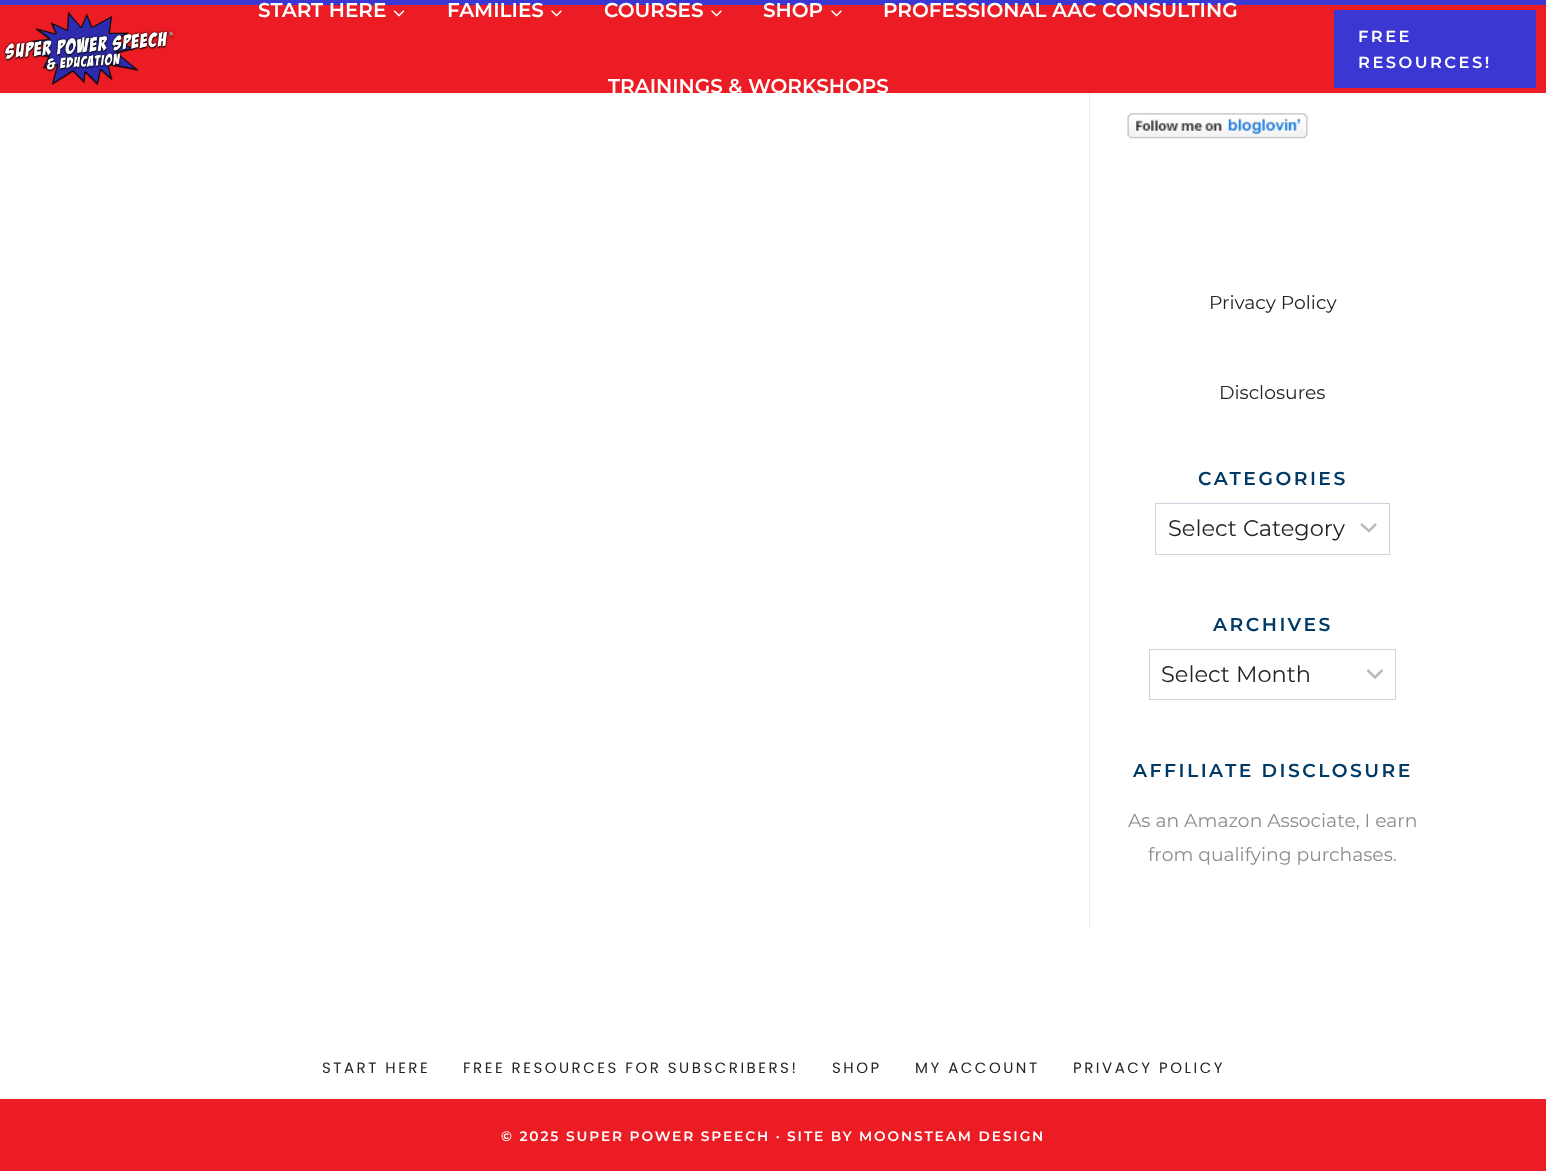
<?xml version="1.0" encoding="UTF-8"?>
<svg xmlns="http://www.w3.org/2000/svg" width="1546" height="1171">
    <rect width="100%" height="100%" fill="#FFFFFF"/>
    <rect x="0" y="5" width="1546" height="88" fill="#EC1C24"/>
    <rect x="0" y="0" width="1546" height="5" fill="#3B37D3"/>
    <image x="3" y="12" width="172" height="74" href="img_01.png"/>
    <text x="258" y="17" font-family="Montserrat" font-size="20" font-weight="600" fill="#FFFFFF">START HERE</text>
    <image x="393" y="10" width="12" height="7" href="img_02.png"/>
    <text x="447" y="17" font-family="Montserrat" font-size="20" font-weight="600" fill="#FFFFFF">FAMILIES</text>
    <image x="551" y="10" width="11" height="7" href="img_03.png"/>
    <text x="604" y="17" font-family="Montserrat" font-size="20" font-weight="600" fill="#FFFFFF">COURSES</text>
    <image x="711" y="10" width="11" height="7" href="img_03.png"/>
    <text x="763" y="17" font-family="Montserrat" font-size="20" font-weight="600" fill="#FFFFFF">SHOP</text>
    <image x="831" y="10" width="11" height="7" href="img_03.png"/>
    <text x="883" y="17" font-family="Montserrat" font-size="20" font-weight="600" fill="#FFFFFF">PROFESSIONAL AAC CONSULTING</text>
    <text x="608" y="93" font-family="Montserrat" font-size="20" font-weight="600" fill="#FFFFFF">TRAININGS &amp; WORKSHOPS</text>
    <rect x="1334" y="10" width="202" height="78" fill="#3B37D3"/>
    <text font-family="Montserrat" font-size="16.25" font-weight="600" letter-spacing="2.5" fill="#FFFFFF">
        <tspan x="1358" y="42">FREE</tspan>
        <tspan x="1358" y="68">RESOURCES!</tspan>
    </text>
    <rect x="1089" y="93" width="1" height="835" fill="#EBEBEB"/>
    <image x="1127" y="113" width="181" height="26" href="img_04.png"/>
    <text x="1209" y="309" font-family="Montserrat" font-size="18.75" fill="#242424">Privacy Policy</text>
    <text x="1219" y="399" font-family="Montserrat" font-size="18.75" fill="#242424">Disclosures</text>
    <text x="1198" y="485" font-family="Montserrat" font-size="18.75" font-weight="600" letter-spacing="2.5" fill="#003A66">CATEGORIES</text>
    <path d="M 1361 524 L 1369 531 L 1376 524" fill="none" stroke="#BBBBBB" stroke-width="2.5"/>
    <rect x="1155.5" y="503.5" width="234" height="51" fill="none" stroke="#CBD5E0"/>
    <text x="1168" y="536" font-family="Montserrat" font-size="22.5" fill="#242424">Select Category</text>
    <text x="1213" y="631" font-family="Montserrat" font-size="18.75" font-weight="600" letter-spacing="2.5" fill="#003A66">ARCHIVES</text>
    <path d="M 1367.5 670 L 1375 677.5 L 1382.5 670" fill="none" stroke="#BBBBBB" stroke-width="2.5"/>
    <rect x="1149.5" y="649.5" width="246" height="50" fill="none" stroke="#CBD5E0"/>
    <text x="1161" y="682" font-family="Montserrat" font-size="22.5" fill="#242424">Select Month</text>
    <text x="1133" y="777" font-family="Montserrat" font-size="18.75" font-weight="600" letter-spacing="2.5" fill="#003A66">AFFILIATE DISCLOSURE</text>
    <text x="1128" y="827" font-family="Montserrat" font-size="18.75" fill="#8D8D8D">As an Amazon Associate, I earn</text>
    <text x="1148" y="861" font-family="Montserrat" font-size="18.75" fill="#8D8D8D">from qualifying purchases.</text>
    <text x="322" y="1073" font-family="Poppins" font-size="15" letter-spacing="2.5" fill="#242424">START HERE</text>
    <text x="463" y="1073" font-family="Poppins" font-size="15" letter-spacing="2.5" fill="#242424">FREE RESOURCES FOR SUBSCRIBERS!</text>
    <text x="832" y="1073" font-family="Poppins" font-size="15" letter-spacing="2.5" fill="#242424">SHOP</text>
    <text x="915" y="1073" font-family="Poppins" font-size="15" letter-spacing="2.5" fill="#242424">MY ACCOUNT</text>
    <text x="1073" y="1073" font-family="Poppins" font-size="15" letter-spacing="2.5" fill="#242424">PRIVACY POLICY</text>
    <rect x="0" y="1099" width="1546" height="72" fill="#EC1C24"/>
    <text x="501" y="1141" font-family="Montserrat" font-size="13.75" font-weight="600" letter-spacing="1.88" fill="#FFFFFF">© 2025 SUPER POWER SPEECH · SITE BY MOONSTEAM DESIGN</text>
</svg>
